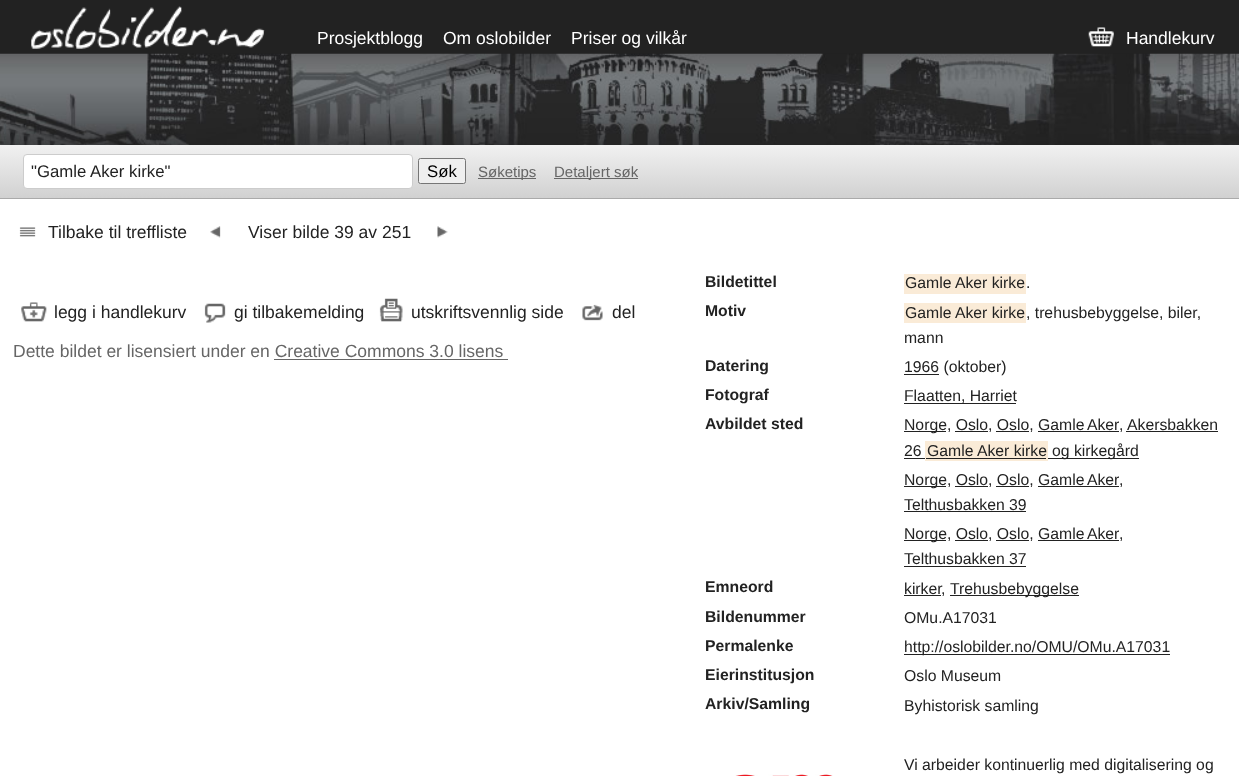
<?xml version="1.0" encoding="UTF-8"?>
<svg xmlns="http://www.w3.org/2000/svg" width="1239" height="776">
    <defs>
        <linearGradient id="g1" gradientUnits="userSpaceOnUse" x1="620" y1="145" x2="620" y2="198"><stop offset="0" stop-color="#F1F1F1"/><stop offset="1" stop-color="#D1D1D1"/></linearGradient>
    </defs>
    <rect width="100%" height="100%" fill="#FFFFFF"/>
    <rect x="0" y="0" width="1239" height="54" fill="#222222"/>
    <image x="0" y="53" width="1239" height="92" href="img_01.png"/>
    <image x="31" y="6" width="234" height="43" href="img_02.png"/>
    <text x="317" y="44" font-family="Liberation Sans" font-size="17.5" fill="#FFFFFF">Prosjektblogg</text>
    <text x="443" y="44" font-family="Liberation Sans" font-size="17.5" fill="#FFFFFF">Om oslobilder</text>
    <text x="571" y="44" font-family="Liberation Sans" font-size="17.5" fill="#FFFFFF">Priser og vilkår</text>
    <image x="1088" y="27" width="26" height="20" href="img_03.png"/>
    <text x="1126" y="44" font-family="Liberation Sans" font-size="17.5" fill="#FFFFFF">Handlekurv</text>
    <rect x="0" y="145" width="1239" height="53" fill="url(#g1)"/>
    <rect x="0" y="198" width="1239" height="1" fill="#AAAAAA"/>
    <rect x="23.5" y="154.5" width="389" height="34" rx="3.5" fill="#FFFFFF" stroke="#CCCCCC"/>
    <text x="31" y="177" font-family="Liberation Sans" font-size="16.75" fill="#222222">"Gamle Aker kirke"</text>
    <rect x="418.5" y="158.5" width="47" height="25" rx="2" fill="#EFEFEF" stroke="#767676"/>
    <text x="427" y="177" font-family="Liberation Sans" font-size="16.75" fill="#000000">Søk</text>
    <rect x="478" y="178" width="58" height="1" fill="#666666"/>
    <text x="478" y="177" font-family="Liberation Sans" font-size="15" fill="#666666">Søketips</text>
    <rect x="554" y="178" width="84" height="1" fill="#666666"/>
    <text x="554" y="177" font-family="Liberation Sans" font-size="15" fill="#666666">Detaljert søk</text>
    <image x="19" y="227" width="17" height="10" href="img_04.png"/>
    <text x="48" y="238" font-family="Liberation Sans" font-size="17.5" fill="#222222">Tilbake til treffliste</text>
    <image x="210" y="226" width="11" height="12" href="img_05.png"/>
    <text x="248" y="238" font-family="Liberation Sans" font-size="17.5" fill="#222222">Viser bilde 39 av 251</text>
    <image x="437" y="226" width="11" height="12" href="img_06.png"/>
    <image x="21" y="302" width="26" height="20" href="img_07.png"/>
    <text x="54" y="318" font-family="Liberation Sans" font-size="17.5" fill="#222222">legg i handlekurv</text>
    <image x="204" y="303" width="22" height="20" href="img_08.png"/>
    <text x="234" y="318" font-family="Liberation Sans" font-size="17.5" fill="#222222">gi tilbakemelding</text>
    <image x="379" y="298" width="24" height="24" href="img_09.png"/>
    <text x="411" y="318" font-family="Liberation Sans" font-size="17.5" fill="#222222">utskriftsvennlig side</text>
    <image x="582" y="304" width="21" height="17" href="img_10.png"/>
    <text x="612" y="318" font-family="Liberation Sans" font-size="17.5" fill="#222222">del</text>
    <text x="13" y="357" font-family="Liberation Sans" font-size="17.5" fill="#666666">Dette bildet er lisensiert under en Creative Commons 3.0 lisens</text>
    <rect x="274" y="359" width="234" height="1" fill="#666666"/>
    <text x="705" y="287" font-family="Liberation Sans" font-size="15.75" font-weight="700" fill="#222222">Bildetittel</text>
    <rect x="904" y="274" width="122" height="20" fill="#FAEBD7"/>
    <text x="905" y="288" font-family="Liberation Sans" font-size="15.75" fill="#222222">Gamle Aker kirke</text>
    <text x="1026" y="288" font-family="Liberation Sans" font-size="15.75" fill="#222222">.</text>
    <text x="705" y="316" font-family="Liberation Sans" font-size="15.75" font-weight="700" fill="#222222">Motiv</text>
    <rect x="904" y="303" width="122" height="20" fill="#FAEBD7"/>
    <text x="905" y="318" font-family="Liberation Sans" font-size="15.75" fill="#222222">Gamle Aker kirke</text>
    <text x="1026" y="318" font-family="Liberation Sans" font-size="15.75" fill="#222222">, trehusbebyggelse, biler,</text>
    <text x="904" y="343" font-family="Liberation Sans" font-size="15.75" fill="#222222">mann</text>
    <text x="705" y="371" font-family="Liberation Sans" font-size="15.75" font-weight="700" fill="#222222">Datering</text>
    <rect x="904" y="374" width="35" height="1" fill="#222222"/>
    <text x="904" y="372" font-family="Liberation Sans" font-size="15.75" fill="#222222">1966 (oktober)</text>
    <text x="705" y="400" font-family="Liberation Sans" font-size="15.75" font-weight="700" fill="#222222">Fotograf</text>
    <text x="904" y="401" font-family="Liberation Sans" font-size="15.75" fill="#222222">Flaatten, Harriet</text>
    <rect x="904" y="403" width="112" height="1" fill="#222222"/>
    <text x="705" y="429" font-family="Liberation Sans" font-size="15.75" font-weight="700" fill="#222222">Avbildet sted</text>
    <rect x="904" y="431" width="42" height="1" fill="#222222"/>
    <text x="904" y="430" font-family="Liberation Sans" font-size="15.75" fill="#222222">Norge, Oslo, Oslo,</text>
    <text x="1038" y="430" word-spacing="-1" font-family="Liberation Sans" font-size="15.75" fill="#222222">Gamle Aker</text>
    <rect x="1038" y="431" width="81" height="1" fill="#222222"/>
    <text x="1119" y="430" font-family="Liberation Sans" font-size="15.75" fill="#222222">,</text>
    <text x="1127" y="430" font-family="Liberation Sans" font-size="15.75" fill="#222222">Akersbakken</text>
    <rect x="1126" y="431" width="92" height="1" fill="#222222"/>
    <rect x="955" y="431" width="33" height="1" fill="#222222"/>
    <rect x="996" y="431" width="33" height="1" fill="#222222"/>
    <text x="904" y="456" font-family="Liberation Sans" font-size="15.75" fill="#222222">26</text>
    <rect x="904" y="458" width="21" height="1" fill="#222222"/>
    <rect x="925" y="441" width="123" height="20" fill="#FAEBD7"/>
    <text x="927" y="456" font-family="Liberation Sans" font-size="15.75" fill="#222222">Gamle Aker kirke</text>
    <rect x="926" y="458" width="120" height="1" fill="#222222"/>
    <rect x="1048" y="458" width="91" height="1" fill="#222222"/>
    <text x="1052" y="456" font-family="Liberation Sans" font-size="15.75" fill="#222222">og kirkegård</text>
    <rect x="904" y="486" width="42" height="1" fill="#222222"/>
    <text x="904" y="485" font-family="Liberation Sans" font-size="15.75" fill="#222222">Norge, Oslo, Oslo,</text>
    <text x="1038" y="485" word-spacing="-1" font-family="Liberation Sans" font-size="15.75" fill="#222222">Gamle Aker</text>
    <rect x="1038" y="486" width="81" height="1" fill="#222222"/>
    <text x="1119" y="485" font-family="Liberation Sans" font-size="15.75" fill="#222222">,</text>
    <rect x="955" y="486" width="33" height="1" fill="#222222"/>
    <rect x="996" y="486" width="33" height="1" fill="#222222"/>
    <text x="904" y="510" font-family="Liberation Sans" font-size="15.75" fill="#222222">Telthusbakken 39</text>
    <rect x="904" y="511" width="122" height="1" fill="#222222"/>
    <rect x="904" y="540" width="42" height="1" fill="#222222"/>
    <text x="904" y="539" font-family="Liberation Sans" font-size="15.75" fill="#222222">Norge, Oslo, Oslo,</text>
    <text x="1038" y="539" word-spacing="-1" font-family="Liberation Sans" font-size="15.75" fill="#222222">Gamle Aker</text>
    <rect x="1038" y="540" width="81" height="1" fill="#222222"/>
    <text x="1119" y="539" font-family="Liberation Sans" font-size="15.75" fill="#222222">,</text>
    <rect x="955" y="540" width="33" height="1" fill="#222222"/>
    <rect x="996" y="540" width="33" height="1" fill="#222222"/>
    <text x="904" y="564" font-family="Liberation Sans" font-size="15.75" fill="#222222">Telthusbakken 37</text>
    <rect x="904" y="566" width="122" height="1" fill="#222222"/>
    <text x="705" y="592" font-family="Liberation Sans" font-size="15.75" font-weight="700" fill="#222222">Emneord</text>
    <text x="904" y="594" font-family="Liberation Sans" font-size="15.75" fill="#222222">kirker</text>
    <rect x="904" y="595" width="37" height="1" fill="#222222"/>
    <text x="941" y="594" font-family="Liberation Sans" font-size="15.75" fill="#222222">,</text>
    <rect x="950" y="595" width="129" height="1" fill="#222222"/>
    <text x="950" y="594" font-family="Liberation Sans" font-size="15.75" fill="#222222">Trehusbebyggelse</text>
    <text x="705" y="622" font-family="Liberation Sans" font-size="15.75" font-weight="700" fill="#222222">Bildenummer</text>
    <text x="904" y="623" font-family="Liberation Sans" font-size="15.75" fill="#222222">OMu.A17031</text>
    <text x="705" y="651" font-family="Liberation Sans" font-size="15.75" font-weight="700" fill="#222222">Permalenke</text>
    <rect x="904" y="654" width="266" height="1" fill="#222222"/>
    <text x="904" y="652" font-family="Liberation Sans" font-size="15.75" fill="#222222">http://oslobilder.no/OMU/OMu.A17031</text>
    <text x="705" y="680" font-family="Liberation Sans" font-size="15.75" font-weight="700" fill="#222222">Eierinstitusjon</text>
    <text x="904" y="681" font-family="Liberation Sans" font-size="15.75" fill="#222222">Oslo Museum</text>
    <text x="705" y="709" font-family="Liberation Sans" font-size="15.75" font-weight="700" fill="#222222">Arkiv/Samling</text>
    <text x="904" y="711" font-family="Liberation Sans" font-size="15.75" fill="#222222">Byhistorisk samling</text>
    <text x="904" y="770" font-family="Liberation Sans" font-size="15.75" fill="#222222">Vi arbeider kontinuerlig med digitalisering og</text>
    <image x="735" y="774" width="98" height="2" href="img_11.png"/>
</svg>
